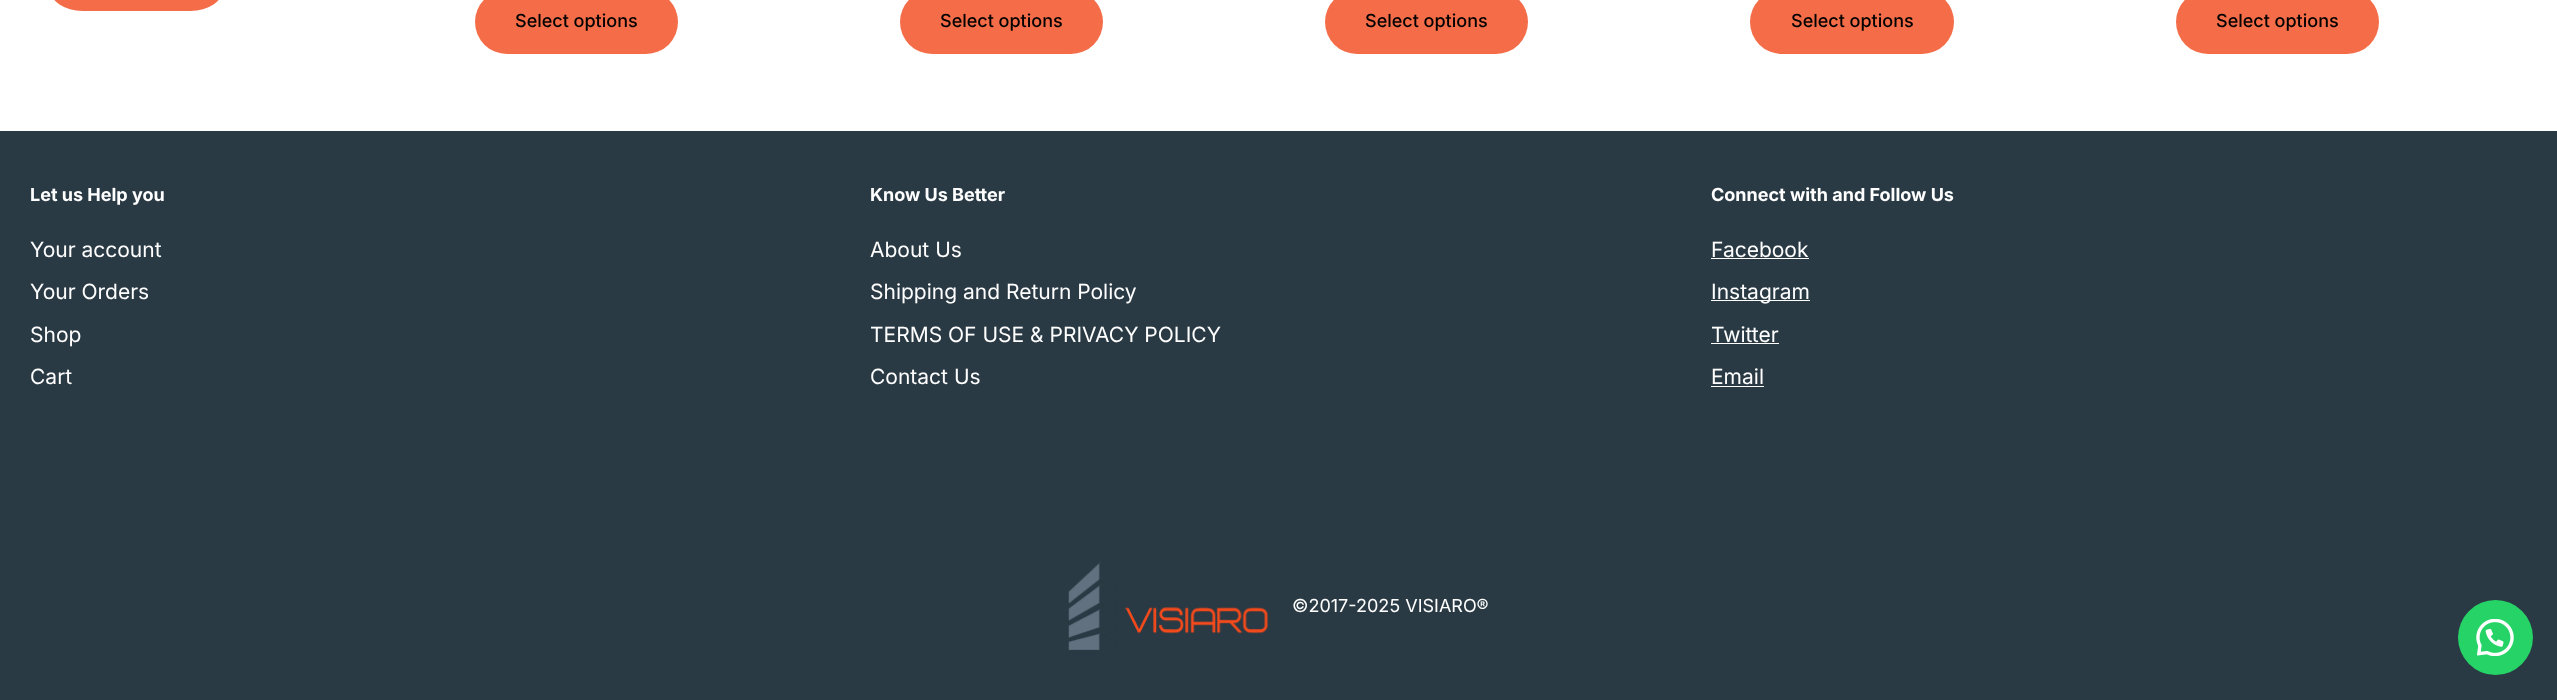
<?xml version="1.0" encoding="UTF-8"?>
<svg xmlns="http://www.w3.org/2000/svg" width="2557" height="700">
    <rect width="100%" height="100%" fill="#FFFFFF"/>
    <rect x="50" y="-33" width="173" height="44" rx="32.5" fill="#F46D48"/>
    <rect x="475" y="-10" width="203" height="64" rx="32" fill="#F46D48"/>
    <text x="515" y="27" font-family="Inter" font-size="18" font-weight="500" fill="#000000">Select options</text>
    <rect x="900" y="-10" width="203" height="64" rx="32" fill="#F46D48"/>
    <text x="940" y="27" font-family="Inter" font-size="18" font-weight="500" fill="#000000">Select options</text>
    <rect x="1325" y="-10" width="203" height="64" rx="32" fill="#F46D48"/>
    <text x="1365" y="27" font-family="Inter" font-size="18" font-weight="500" fill="#000000">Select options</text>
    <rect x="1750" y="-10" width="204" height="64" rx="32" fill="#F46D48"/>
    <text x="1791" y="27" font-family="Inter" font-size="18" font-weight="500" fill="#000000">Select options</text>
    <rect x="2176" y="-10" width="203" height="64" rx="32" fill="#F46D48"/>
    <text x="2216" y="27" font-family="Inter" font-size="18" font-weight="500" fill="#000000">Select options</text>
    <rect x="0" y="131" width="2557" height="569" fill="#2A3A44"/>
    <text x="30" y="201" font-family="Inter" font-size="18" font-weight="700" fill="#FFFFFF">Let us Help you</text>
    <text x="30" y="257" font-family="Inter" font-size="21" fill="#FFFFFF">Your account</text>
    <text x="30" y="299" font-family="Inter" font-size="21" fill="#FFFFFF">Your Orders</text>
    <text x="30" y="342" font-family="Inter" font-size="21" fill="#FFFFFF">Shop</text>
    <text x="30" y="384" font-family="Inter" font-size="21" fill="#FFFFFF">Cart</text>
    <text x="870" y="201" font-family="Inter" font-size="18" font-weight="700" fill="#FFFFFF">Know Us Better</text>
    <text x="870" y="257" font-family="Inter" font-size="21" fill="#FFFFFF">About Us</text>
    <text x="870" y="299" font-family="Inter" font-size="21" fill="#FFFFFF">Shipping and Return Policy</text>
    <text x="870" y="342" font-family="Inter" font-size="21" fill="#FFFFFF">TERMS OF USE &amp; PRIVACY POLICY</text>
    <text x="870" y="384" font-family="Inter" font-size="21" fill="#FFFFFF">Contact Us</text>
    <text x="1711" y="201" font-family="Inter" font-size="18" font-weight="700" fill="#FFFFFF">Connect with and Follow Us</text>
    <text x="1711" y="257" font-family="Inter" font-size="21" fill="#FFFFFF">Facebook</text>
    <rect x="1711" y="258" width="98" height="1" fill="#FFFFFF"/>
    <rect x="1711" y="300" width="99" height="1" fill="#FFFFFF"/>
    <text x="1711" y="299" font-family="Inter" font-size="21" fill="#FFFFFF">Instagram</text>
    <text x="1711" y="342" font-family="Inter" font-size="21" fill="#FFFFFF">Twitter</text>
    <rect x="1711" y="343" width="68" height="1" fill="#FFFFFF"/>
    <text x="1711" y="384" font-family="Inter" font-size="21" fill="#FFFFFF">Email</text>
    <rect x="1711" y="386" width="53" height="1" fill="#FFFFFF"/>
    <image x="1068" y="562" width="200" height="88" href="img_01.png"/>
    <text x="1292" y="612" font-family="Inter" font-size="18" fill="#FFFFFF">©2017-2025 VISIARO®</text>
    <circle cx="2495.5" cy="637.5" r="37.5" fill="#25D366"/>
    <image x="2476" y="619" width="38" height="37" href="img_02.png"/>
</svg>
